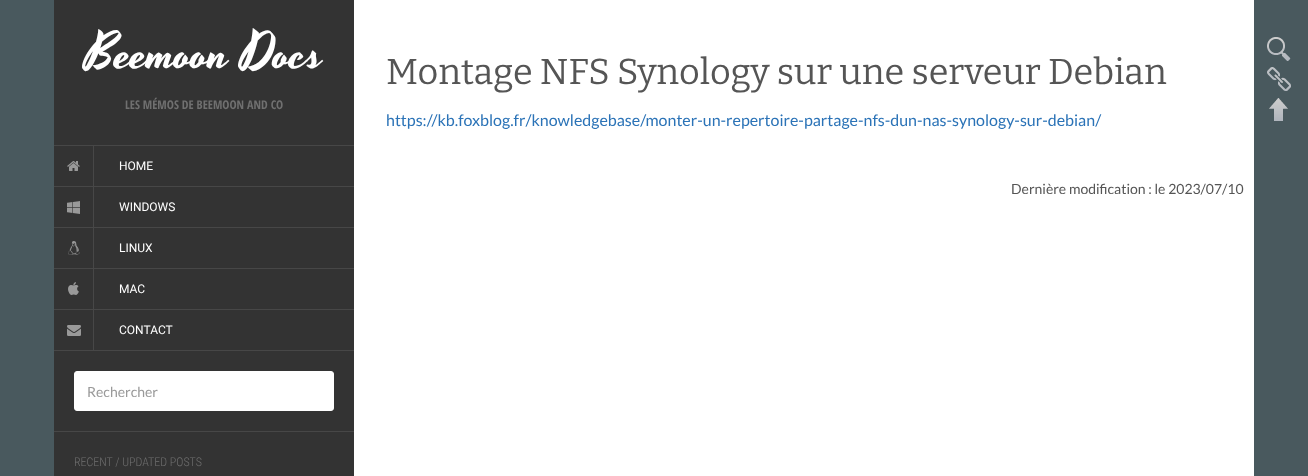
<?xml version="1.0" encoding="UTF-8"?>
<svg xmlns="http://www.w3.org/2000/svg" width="1308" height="476">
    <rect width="100%" height="100%" fill="#49595E"/>
    <rect x="354" y="0" width="900" height="476" fill="#FFFFFF"/>
    <rect x="54" y="0" width="300" height="476" fill="#333333"/>
    <rect x="54" y="145" width="300" height="1" fill="#474747"/>
    <text x="85" y="67" font-family="Yesteryear" font-size="50" fill="#FFFFFF">Beemoon Docs</text>
    <text x="125" y="109" font-family="Open Sans Condensed" font-size="12" font-weight="700" fill="#707070">LES MÉMOS DE BEEMOON AND CO</text>
    <rect x="54" y="186" width="300" height="1" fill="#474747"/>
    <rect x="93" y="146" width="1" height="40" fill="#474747"/>
    <image x="67" y="161" width="13" height="10" href="img_01.png"/>
    <text x="119" y="170" font-family="Roboto" font-size="12" fill="#FFFFFF">HOME</text>
    <rect x="54" y="227" width="300" height="1" fill="#474747"/>
    <rect x="93" y="187" width="1" height="40" fill="#474747"/>
    <image x="67" y="201" width="13" height="13" href="img_02.png"/>
    <text x="119" y="211" font-family="Roboto" font-size="12" fill="#FFFFFF">WINDOWS</text>
    <rect x="54" y="268" width="300" height="1" fill="#474747"/>
    <rect x="93" y="228" width="1" height="40" fill="#474747"/>
    <image x="68" y="241" width="12" height="14" href="img_03.png"/>
    <text x="119" y="252" font-family="Roboto" font-size="12" fill="#FFFFFF">LINUX</text>
    <rect x="54" y="309" width="300" height="1" fill="#474747"/>
    <rect x="93" y="269" width="1" height="40" fill="#474747"/>
    <image x="68" y="282" width="11" height="13" href="img_04.png"/>
    <text x="119" y="293" font-family="Roboto" font-size="12" fill="#FFFFFF">MAC</text>
    <rect x="54" y="350" width="300" height="1" fill="#474747"/>
    <rect x="93" y="310" width="1" height="40" fill="#474747"/>
    <image x="67" y="325" width="14" height="11" href="img_05.png"/>
    <text x="119" y="334" font-family="Roboto" font-size="12" fill="#FFFFFF">CONTACT</text>
    <rect x="54" y="431" width="300" height="1" fill="#474747"/>
    <rect x="74.5" y="371.5" width="259" height="39" rx="2.5" fill="#FFFFFF" stroke="#FFFFFF"/>
    <text x="87" y="397" font-family="Lato" font-size="14" fill="#999999">Rechercher</text>
    <text x="74" y="466" font-family="Roboto Condensed" font-size="12" font-weight="300" fill="#707070">RECENT / UPDATED POSTS</text>
    <text x="386" y="84" font-family="Bitter" font-size="36" font-weight="100" fill="#555555">Montage NFS Synology sur une serveur Debian</text>
    <text x="386" y="126" font-family="Lato" font-size="16" fill="#2B73B7">https://kb.foxblog.fr/knowledgebase/monter-un-repertoire-partage-nfs-dun-nas-synology-sur-debian/</text>
    <text x="1011" y="194" font-family="Lato" font-size="14" fill="#555555">Dernière modification : le 2023/07/10</text>
    <image x="1267" y="37" width="24" height="24" href="img_06.png"/>
    <image x="1267" y="67" width="24" height="24" href="img_07.png"/>
    <image x="1269" y="98" width="19" height="23" href="img_08.png"/>
</svg>
